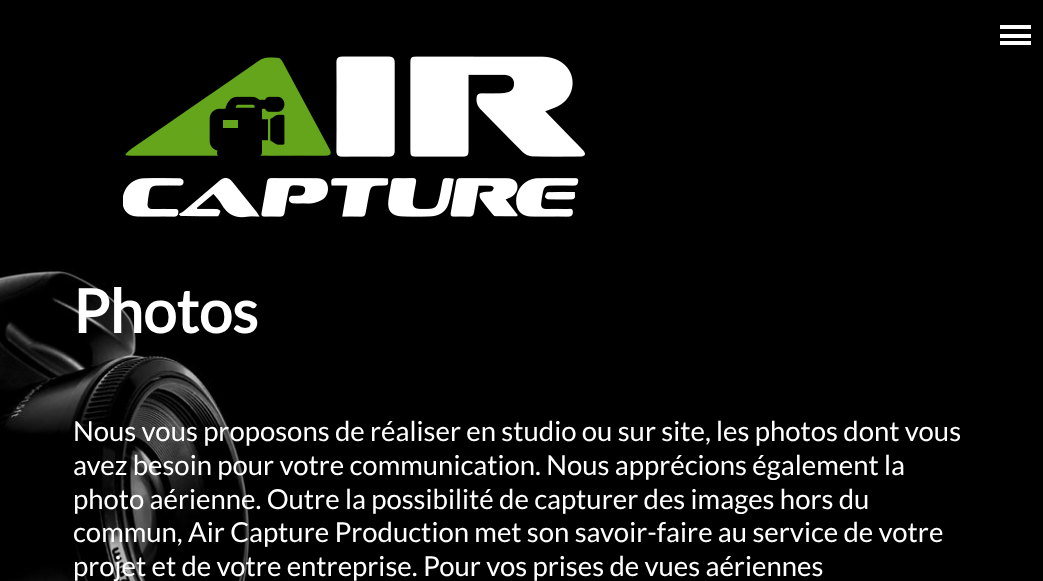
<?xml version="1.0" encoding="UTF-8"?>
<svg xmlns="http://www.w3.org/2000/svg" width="1043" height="581">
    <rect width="100%" height="100%" fill="#000000"/>
    <rect x="1000" y="25" width="31" height="4" fill="#FFFFFF"/>
    <rect x="1000" y="34" width="31" height="4" fill="#FFFFFF"/>
    <rect x="1000" y="41" width="31" height="4" fill="#FFFFFF"/>
    <image x="0" y="268" width="249" height="313" href="img_01.png"/>
    <image x="123" y="56" width="462" height="162" href="img_02.png"/>
    <text x="73" y="333" font-family="Lato" font-size="60" font-weight="700" fill="#FFFFFF">Photos</text>
    <text font-family="Lato" font-size="27.5" fill="#FFFFFF">
        <tspan x="73" y="441">Nous vous proposons de réaliser en studio ou sur site, les photos dont vous</tspan>
        <tspan x="73" y="475">avez besoin pour votre communication. Nous apprécions également la</tspan>
        <tspan x="73" y="509">photo aérienne. Outre la possibilité de capturer des images hors du</tspan>
        <tspan x="73" y="542">commun, Air Capture Production met son savoir-faire au service de votre</tspan>
        <tspan x="73" y="576">projet et de votre entreprise. Pour vos prises de vues aériennes</tspan>
    </text>
</svg>
